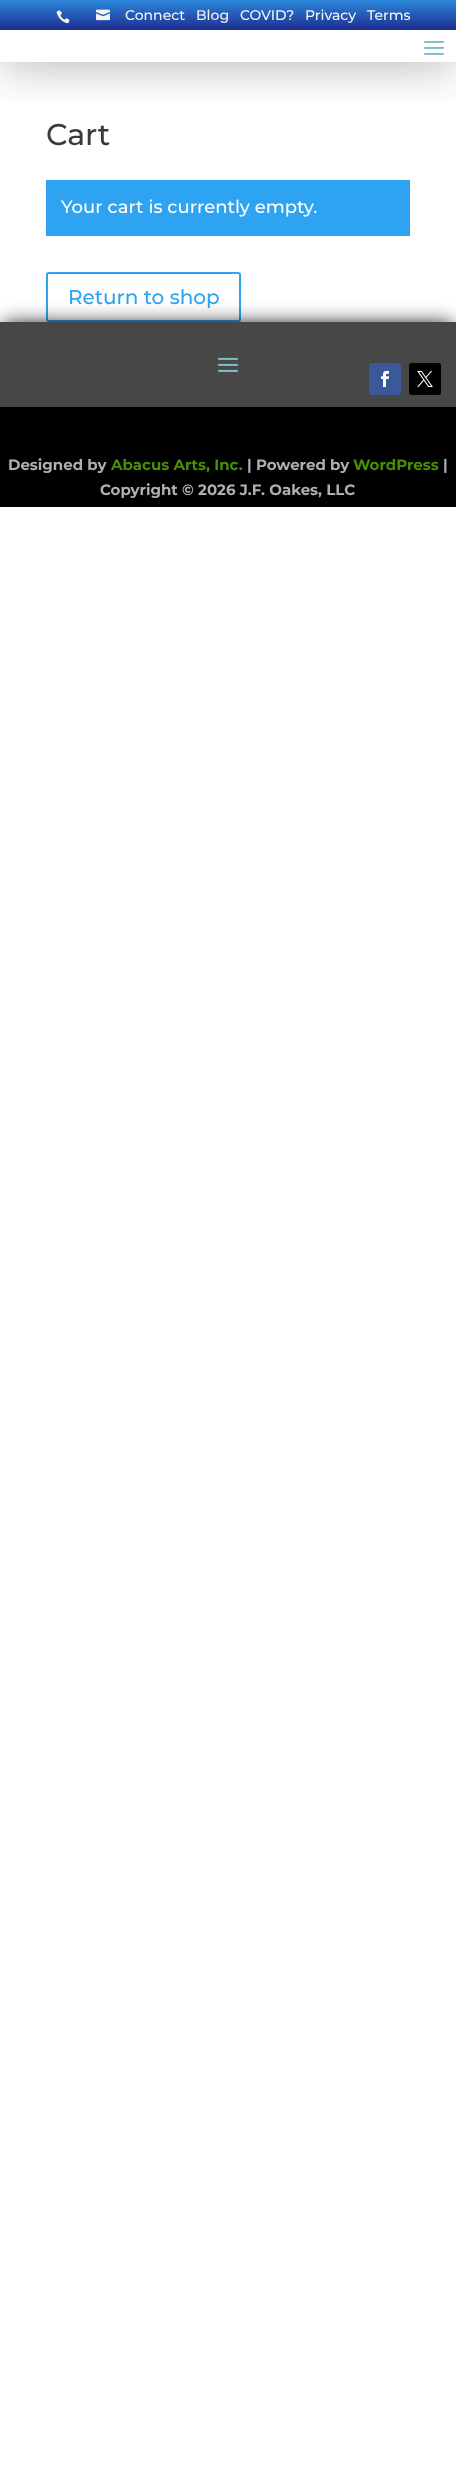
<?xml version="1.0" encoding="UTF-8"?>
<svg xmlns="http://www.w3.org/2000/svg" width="456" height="2492">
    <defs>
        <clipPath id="clip1"><rect x="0" y="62" width="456" height="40"/></clipPath>
        <filter id="blur1" x="-50%" y="-200%" width="200%" height="500%"><feGaussianBlur stdDeviation="25"/></filter>
        <linearGradient id="g1" gradientUnits="userSpaceOnUse" x1="228" y1="0" x2="228" y2="30"><stop offset="0" stop-color="#2B87DA"/><stop offset="1" stop-color="#1E2D91"/></linearGradient>
        <filter id="blur2" x="-50%" y="-200%" width="200%" height="500%"><feGaussianBlur stdDeviation="10"/></filter>
    </defs>
    <rect width="100%" height="100%" fill="#FFFFFF"/>
    <g clip-path="url(#clip1)">
        <rect x="0" y="2" width="456" height="62" fill="#000000" fill-opacity="0.3" filter="url(#blur1)"/>
    </g>
    <rect x="0" y="0" width="456" height="30" fill="url(#g1)"/>
    <image x="56" y="10" width="14" height="14" href="img_01.png"/>
    <image x="96" y="9" width="14" height="12" href="img_02.png"/>
    <text x="125" y="20" font-family="Montserrat" font-size="14" font-weight="500" fill="#F4F4F4">Connect</text>
    <text x="196" y="20" font-family="Montserrat" font-size="14" font-weight="500" fill="#F4F4F4">Blog</text>
    <text x="240" y="20" font-family="Montserrat" font-size="14" font-weight="500" fill="#F4F4F4">COVID?</text>
    <text x="305" y="20" font-family="Montserrat" font-size="14" font-weight="500" fill="#F4F4F4">Privacy</text>
    <text x="367" y="20" font-family="Montserrat" font-size="14" font-weight="500" fill="#F4F4F4">Terms</text>
    <image x="424" y="40" width="20" height="15" href="img_03.png"/>
    <text x="46" y="145" font-family="Montserrat" font-size="30" font-weight="500" fill="#3A3A3A">Cart</text>
    <rect x="46" y="180" width="364" height="56" fill="#2EA3F2"/>
    <text x="61" y="213" font-family="Montserrat" font-size="18" font-weight="500" fill="#FFFFFF">Your cart is currently empty.</text>
    <rect x="47" y="273" width="193" height="48" rx="2" fill="none" stroke="#2EA3F2" stroke-width="2"/>
    <text x="68" y="304" font-family="Montserrat" font-size="20" font-weight="500" fill="#2EA3F2">Return to shop</text>
    <rect x="4" y="324" width="448" height="67" fill="#000000" filter="url(#blur2)"/>
    <rect x="0" y="322" width="456" height="85" fill="#474747"/>
    <image x="218" y="357" width="20" height="15" href="img_04.png"/>
    <rect x="369" y="363" width="32" height="32" rx="3" fill="#3B5998"/>
    <image x="381" y="371" width="8" height="16" href="img_05.png"/>
    <rect x="409" y="363" width="32" height="32" rx="3" fill="#000000"/>
    <image x="417" y="371" width="16" height="16" href="img_06.png"/>
    <rect x="0" y="407" width="456" height="100" fill="#000000"/>
    <text x="8" y="470" font-family="Montserrat" font-size="15" font-weight="700" fill="#AFAFAF">Designed by</text>
    <text x="111" y="470" font-family="Montserrat" font-size="15" font-weight="700" fill="#469100">Abacus Arts, Inc.</text>
    <text x="247" y="470" font-family="Montserrat" font-size="15" font-weight="700" fill="#AFAFAF">| Powered by</text>
    <text x="353" y="470" font-family="Montserrat" font-size="15" font-weight="700" fill="#469100">WordPress</text>
    <text x="443" y="470" font-family="Montserrat" font-size="15" font-weight="700" fill="#AFAFAF">|</text>
    <text x="100" y="495" font-family="Montserrat" font-size="15" font-weight="700" fill="#AFAFAF">Copyright © 2026 J.F. Oakes, LLC</text>
</svg>
